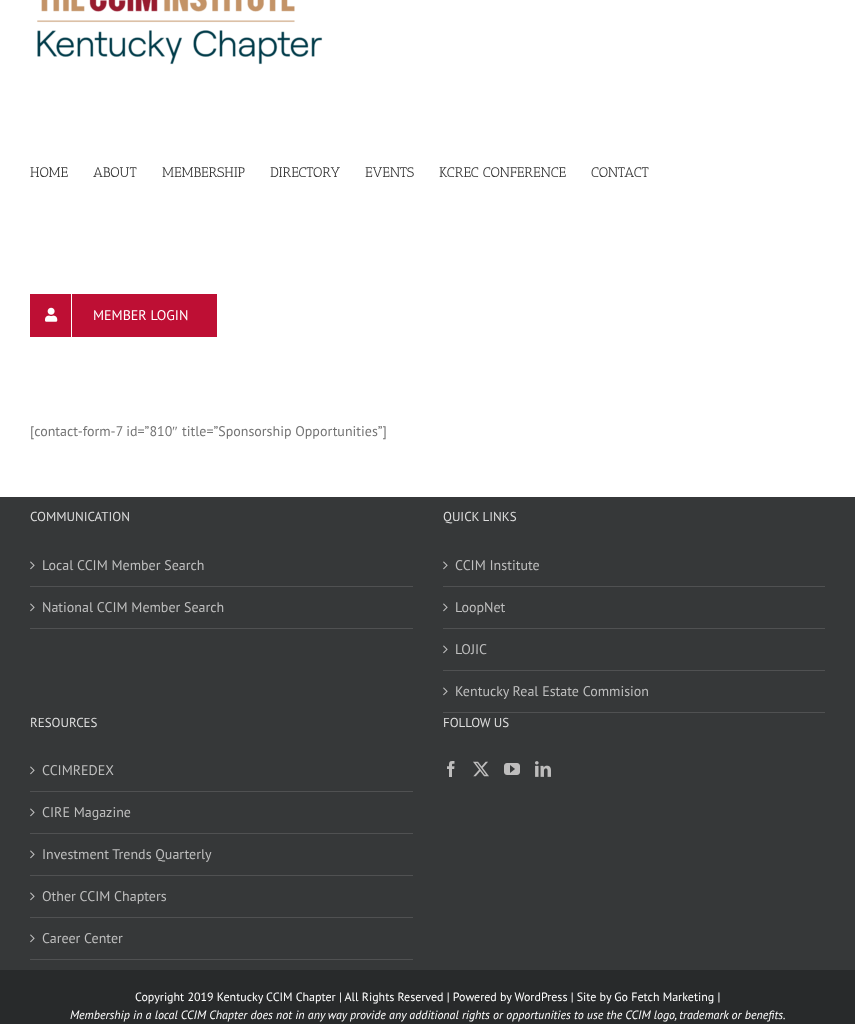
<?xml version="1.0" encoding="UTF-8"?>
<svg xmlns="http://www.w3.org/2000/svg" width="855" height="1024">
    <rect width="100%" height="100%" fill="#FFFFFF"/>
    <image x="37" y="0" width="286" height="65" href="img_01.png"/>
    <text x="30" y="177" font-family="Antic Slab" font-size="14" fill="#333333">HOME</text>
    <text x="93" y="177" font-family="Antic Slab" font-size="14" fill="#333333">ABOUT</text>
    <text x="162" y="177" font-family="Antic Slab" font-size="14" fill="#333333">MEMBERSHIP</text>
    <text x="270" y="177" font-family="Antic Slab" font-size="14" fill="#333333">DIRECTORY</text>
    <text x="365" y="177" font-family="Antic Slab" font-size="14" fill="#333333">EVENTS</text>
    <text x="439" y="177" font-family="Antic Slab" font-size="14" fill="#333333">KCREC CONFERENCE</text>
    <text x="591" y="177" font-family="Antic Slab" font-size="14" fill="#333333">CONTACT</text>
    <rect x="30" y="294" width="187" height="43" fill="#BE0F34"/>
    <rect x="71" y="294" width="1" height="43" fill="#FFFFFF"/>
    <image x="45" y="307" width="13" height="15" href="img_02.png"/>
    <text x="93" y="320" font-family="PT Sans" font-size="14" fill="#FFFFFF">MEMBER LOGIN</text>
    <text x="30" y="436" font-family="PT Sans" font-size="14" fill="#747474">[contact-form-7 id=”810</text>
    <text x="172" y="436" font-family="Liberation Serif" font-size="14" fill="#747474">″</text>
    <text x="182" y="436" font-family="PT Sans" font-size="14" fill="#747474">title=”Sponsorship Opportunities”]</text>
    <rect x="0" y="497" width="855" height="473" fill="#363839"/>
    <text x="30" y="521" font-family="PT Sans" font-size="13" fill="#DDDDDD">COMMUNICATION</text>
    <rect x="30" y="586" width="383" height="1" fill="#505152"/>
    <image x="30" y="561" width="5" height="9" href="img_03.png"/>
    <text x="42" y="570" font-family="PT Sans" font-size="14" fill="#BFBFBF">Local CCIM Member Search</text>
    <rect x="30" y="628" width="383" height="1" fill="#505152"/>
    <image x="30" y="603" width="5" height="9" href="img_03.png"/>
    <text x="42" y="612" font-family="PT Sans" font-size="14" fill="#BFBFBF">National CCIM Member Search</text>
    <text x="443" y="521" font-family="PT Sans" font-size="13" fill="#DDDDDD">QUICK LINKS</text>
    <rect x="443" y="586" width="382" height="1" fill="#505152"/>
    <image x="443" y="561" width="5" height="9" href="img_03.png"/>
    <text x="455" y="570" font-family="PT Sans" font-size="14" fill="#BFBFBF">CCIM Institute</text>
    <rect x="443" y="628" width="382" height="1" fill="#505152"/>
    <image x="443" y="603" width="5" height="9" href="img_03.png"/>
    <text x="455" y="612" font-family="PT Sans" font-size="14" fill="#BFBFBF">LoopNet</text>
    <rect x="443" y="670" width="382" height="1" fill="#505152"/>
    <image x="443" y="645" width="5" height="9" href="img_03.png"/>
    <text x="455" y="654" font-family="PT Sans" font-size="14" fill="#BFBFBF">LOJIC</text>
    <rect x="443" y="712" width="382" height="1" fill="#505152"/>
    <image x="443" y="687" width="5" height="9" href="img_03.png"/>
    <text x="455" y="696" font-family="PT Sans" font-size="14" fill="#BFBFBF">Kentucky Real Estate Commision</text>
    <text x="30" y="727" font-family="PT Sans" font-size="13" fill="#DDDDDD">RESOURCES</text>
    <rect x="30" y="791" width="383" height="1" fill="#505152"/>
    <image x="30" y="766" width="5" height="9" href="img_03.png"/>
    <text x="42" y="775" font-family="PT Sans" font-size="14" fill="#BFBFBF">CCIMREDEX</text>
    <rect x="30" y="833" width="383" height="1" fill="#505152"/>
    <image x="30" y="808" width="5" height="9" href="img_03.png"/>
    <text x="42" y="817" font-family="PT Sans" font-size="14" fill="#BFBFBF">CIRE Magazine</text>
    <rect x="30" y="875" width="383" height="1" fill="#505152"/>
    <image x="30" y="850" width="5" height="9" href="img_03.png"/>
    <text x="42" y="859" font-family="PT Sans" font-size="14" fill="#BFBFBF">Investment Trends Quarterly</text>
    <rect x="30" y="917" width="383" height="1" fill="#505152"/>
    <image x="30" y="892" width="5" height="9" href="img_03.png"/>
    <text x="42" y="901" font-family="PT Sans" font-size="14" fill="#BFBFBF">Other CCIM Chapters</text>
    <rect x="30" y="959" width="383" height="1" fill="#505152"/>
    <image x="30" y="934" width="5" height="9" href="img_03.png"/>
    <text x="42" y="943" font-family="PT Sans" font-size="14" fill="#BFBFBF">Career Center</text>
    <text x="443" y="727" font-family="PT Sans" font-size="13" fill="#DDDDDD">FOLLOW US</text>
    <image x="447" y="761" width="8" height="16" href="img_04.png"/>
    <image x="473" y="761" width="16" height="16" href="img_05.png"/>
    <image x="504" y="763" width="16" height="12" href="img_06.png"/>
    <image x="535" y="761" width="16" height="16" href="img_07.png"/>
    <rect x="0" y="970" width="855" height="54" fill="#282A2B"/>
    <text x="135" y="1001" font-family="PT Sans" font-size="12" fill="#FFFFFF">Copyright 2019 Kentucky CCIM Chapter | All Rights Reserved | Powered by WordPress | Site by Go Fetch Marketing |</text>
    <text x="70" y="1019" font-family="PT Sans" font-size="12" font-style="italic" fill="#FFFFFF">Membership in a local CCIM Chapter does not in any way provide any additional rights or opportunities to use the CCIM logo, trademark or benefits.</text>
</svg>
